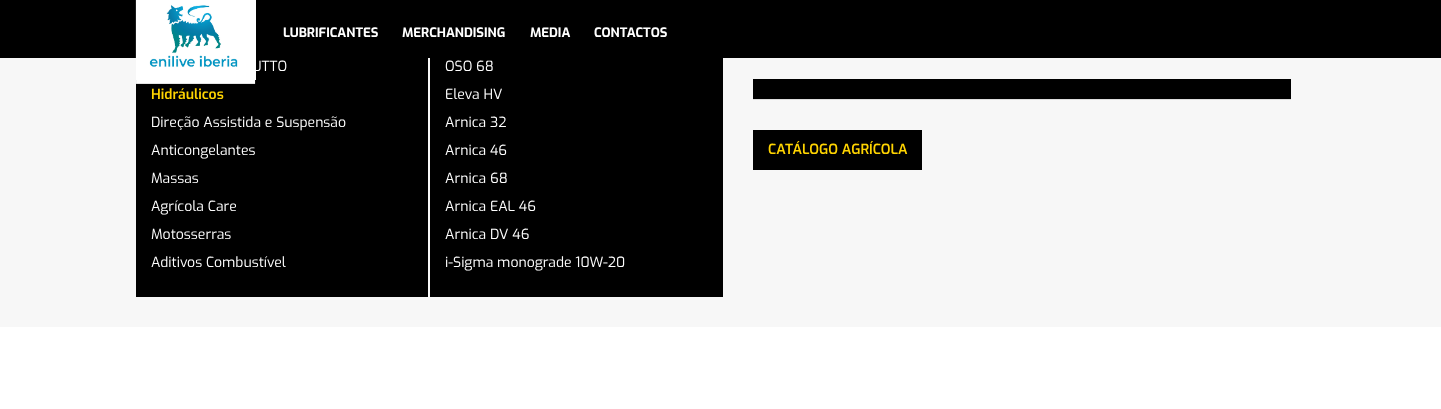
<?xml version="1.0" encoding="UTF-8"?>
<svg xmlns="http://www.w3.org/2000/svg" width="1441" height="409">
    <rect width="100%" height="100%" fill="#FFFFFF"/>
    <rect x="0" y="0" width="1441" height="58" fill="#000000"/>
    <rect x="0" y="58" width="1441" height="269" fill="#F7F7F7"/>
    <rect x="136" y="58" width="292" height="239" fill="#000000"/>
    <rect x="136" y="0" width="120" height="80" fill="#FFFFFF"/>
    <text x="252" y="71" font-family="Exo" font-size="14" fill="#FFFFFF">UTTO</text>
    <image x="135" y="0" width="121" height="84" href="img_01.png"/>
    <text x="283" y="37" font-family="Exo" font-size="13" font-weight="700" fill="#FFFFFF">LUBRIFICANTES</text>
    <text x="402" y="37" font-family="Exo" font-size="13" font-weight="700" fill="#FFFFFF">MERCHANDISING</text>
    <text x="530" y="37" font-family="Exo" font-size="13" font-weight="700" fill="#FFFFFF">MEDIA</text>
    <text x="594" y="37" font-family="Exo" font-size="13" font-weight="700" fill="#FFFFFF">CONTACTOS</text>
    <text x="151" y="99" font-family="Exo" font-size="14" font-weight="600" fill="#FFD401">Hidráulicos</text>
    <text x="151" y="127" font-family="Exo" font-size="14" fill="#FFFFFF">Direção Assistida e Suspensão</text>
    <text x="151" y="155" font-family="Exo" font-size="14" fill="#FFFFFF">Anticongelantes</text>
    <text x="151" y="183" font-family="Exo" font-size="14" fill="#FFFFFF">Massas</text>
    <text x="151" y="211" font-family="Exo" font-size="14" fill="#FFFFFF">Agrícola Care</text>
    <text x="151" y="239" font-family="Exo" font-size="14" fill="#FFFFFF">Motosserras</text>
    <text x="151" y="267" font-family="Exo" font-size="14" fill="#FFFFFF">Aditivos Combustível</text>
    <rect x="430" y="58" width="293" height="239" fill="#000000"/>
    <text x="445" y="71" font-family="Exo" font-size="14" fill="#FFFFFF">OSO 68</text>
    <text x="445" y="99" font-family="Exo" font-size="14" fill="#FFFFFF">Eleva HV</text>
    <text x="445" y="127" font-family="Exo" font-size="14" fill="#FFFFFF">Arnica 32</text>
    <text x="445" y="155" font-family="Exo" font-size="14" fill="#FFFFFF">Arnica 46</text>
    <text x="445" y="183" font-family="Exo" font-size="14" fill="#FFFFFF">Arnica 68</text>
    <text x="445" y="211" font-family="Exo" font-size="14" fill="#FFFFFF">Arnica EAL 46</text>
    <text x="445" y="239" font-family="Exo" font-size="14" fill="#FFFFFF">Arnica DV 46</text>
    <text x="445" y="267" font-family="Exo" font-size="14" fill="#FFFFFF">i-Sigma monograde 10W-20</text>
    <rect x="753" y="79" width="538" height="20" fill="#000000"/>
    <rect x="753" y="99" width="538" height="1" fill="#DCDCDC"/>
    <rect x="753" y="130" width="169" height="40" fill="#000000"/>
    <text x="768" y="154" font-family="Exo" font-size="14" font-weight="600" fill="#FFD401">CATÁLOGO AGRÍCOLA</text>
</svg>
